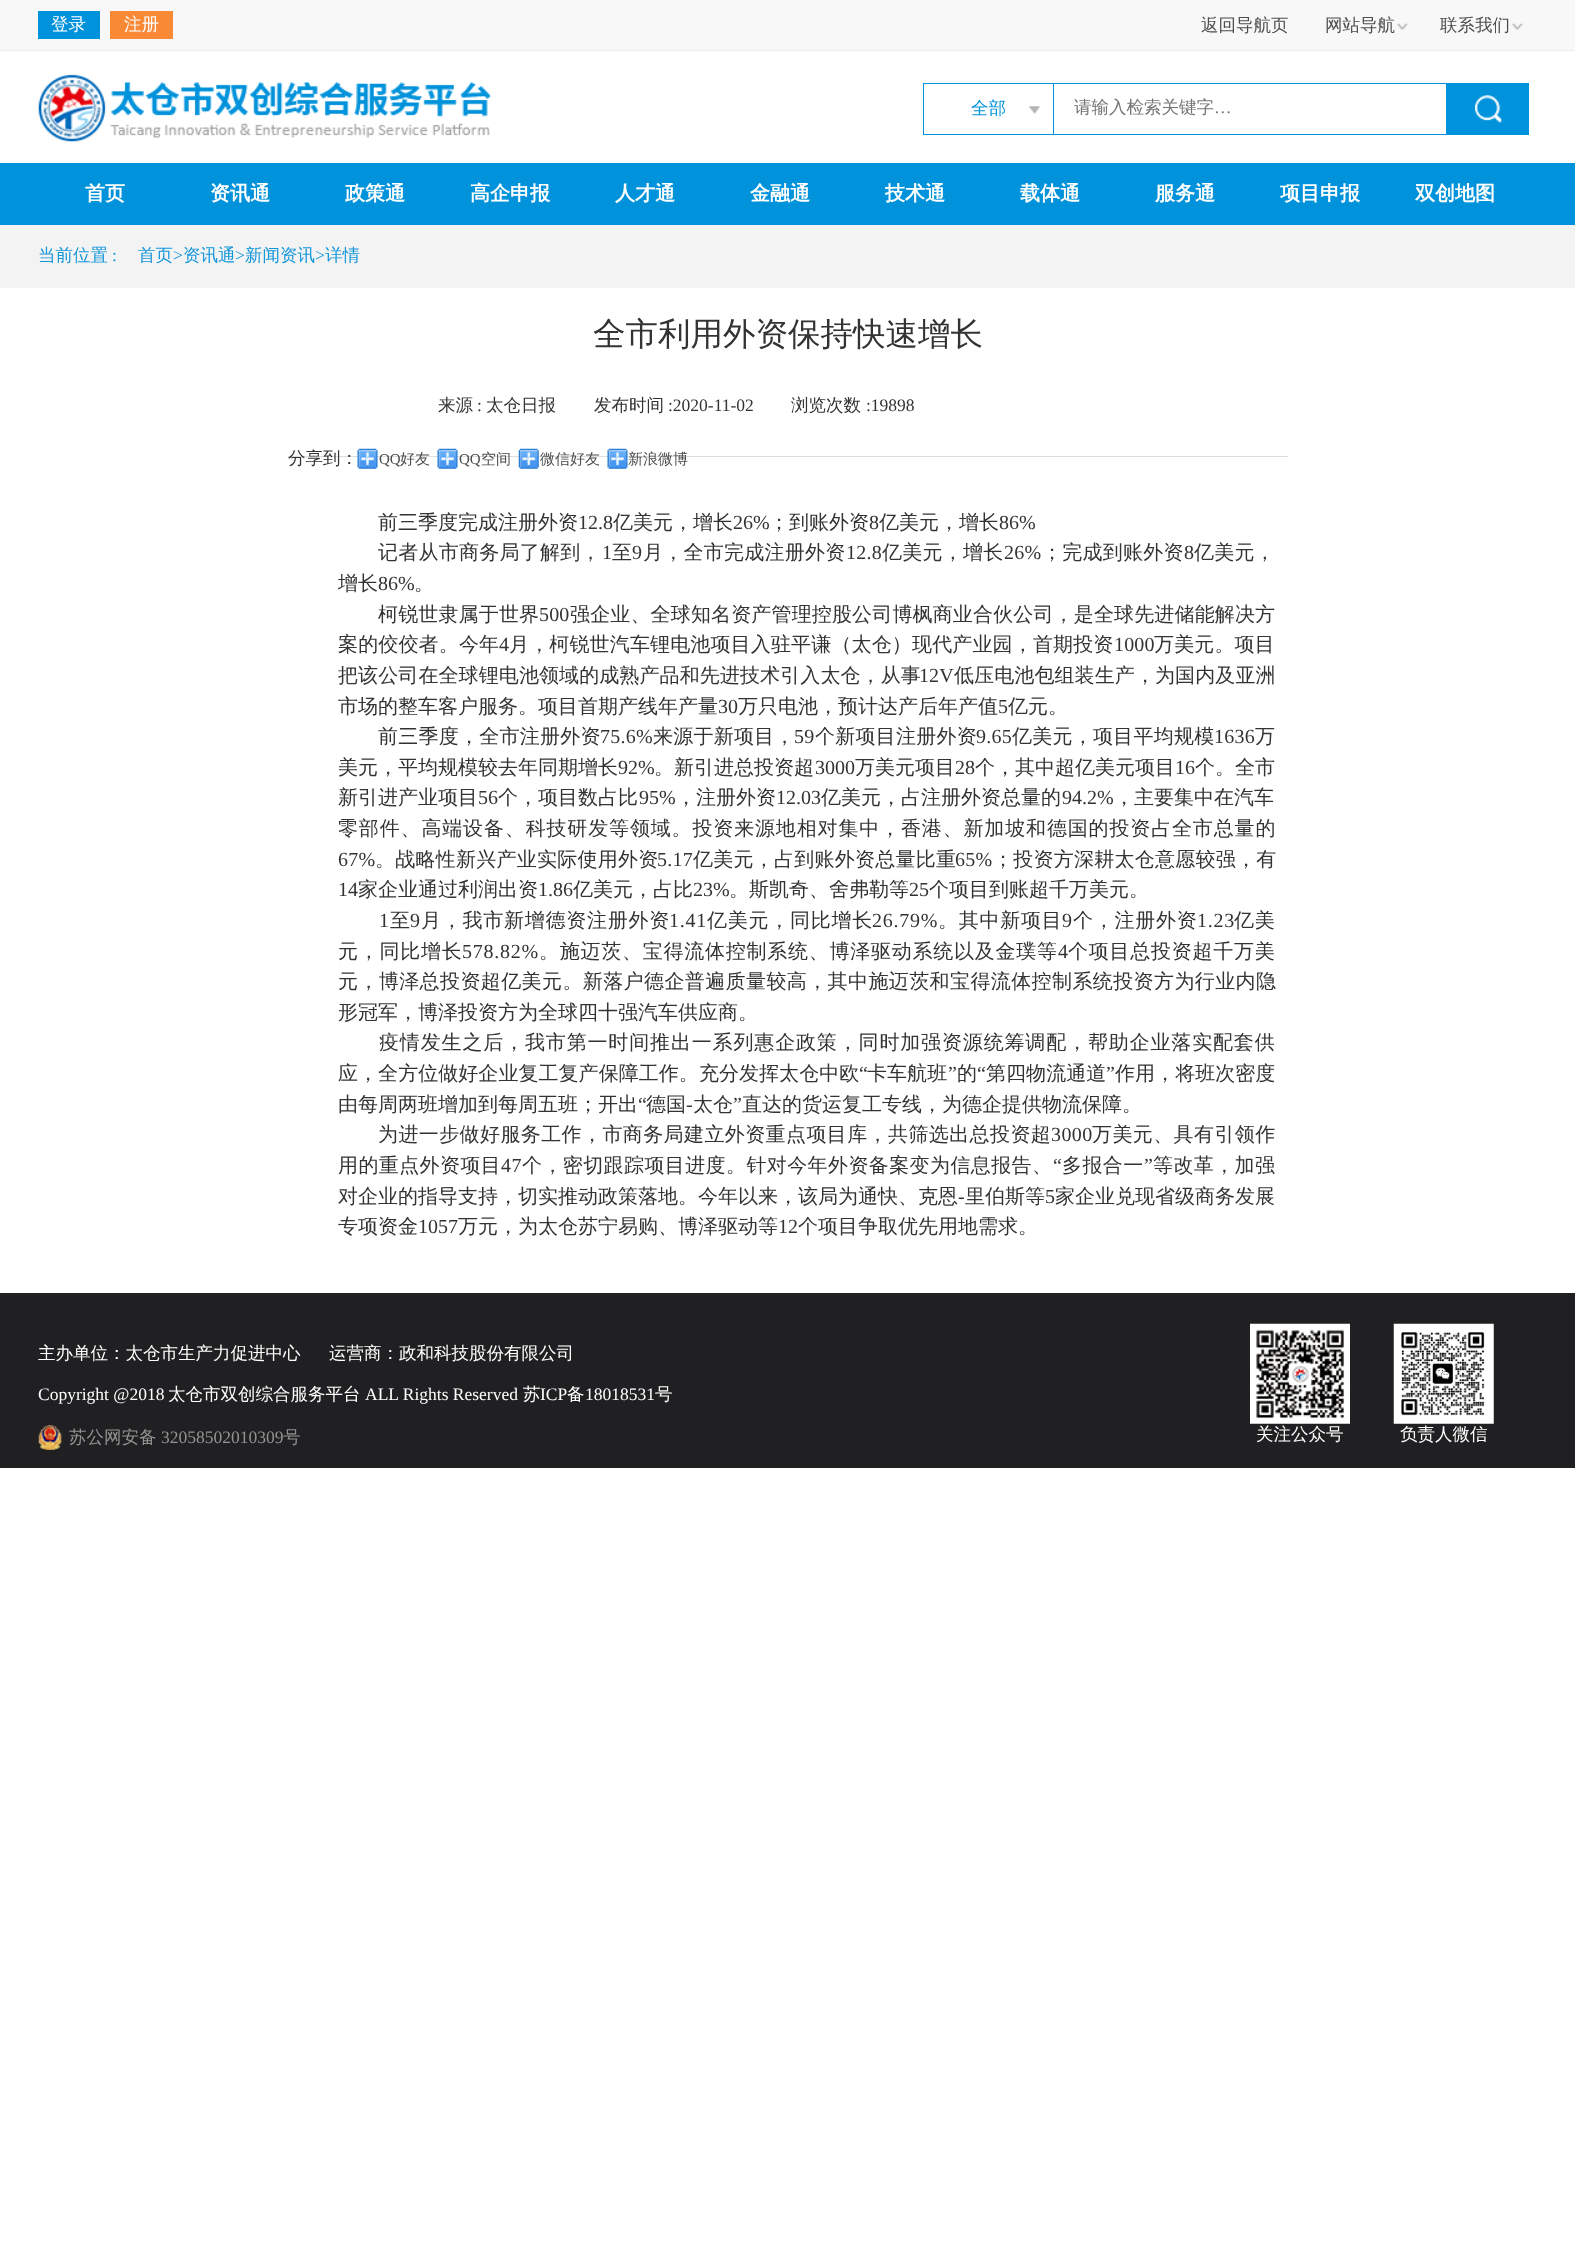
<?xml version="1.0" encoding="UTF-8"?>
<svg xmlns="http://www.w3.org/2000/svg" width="1575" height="2244">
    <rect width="100%" height="100%" fill="#FFFFFF"/>
    <rect x="0" y="0" width="1575" height="50" fill="#F8F8F8"/>
    <rect x="0" y="50" width="1575" height="1" fill="#EEEEEE"/>
    <rect x="38" y="11" width="62" height="28" fill="#0092DA"/>
    <text x="51" y="30" font-family="WenQuanYi Zen Hei" font-size="17.5" font-weight="500" fill="#FFFFFF">登录</text>
    <rect x="110" y="11" width="63" height="28" fill="#FA8936"/>
    <text x="124" y="30" font-family="WenQuanYi Zen Hei" font-size="17.5" font-weight="500" fill="#FFFFFF">注册</text>
    <text x="1201" y="31" font-family="WenQuanYi Zen Hei" font-size="17.5" font-weight="500" fill="#4D4D4D">返回导航页</text>
    <image x="1397" y="23" width="11" height="7" href="img_01.png"/>
    <text x="1325" y="31" font-family="WenQuanYi Zen Hei" font-size="17.5" font-weight="500" fill="#4D4D4D">网站导航</text>
    <image x="1512" y="23" width="11" height="7" href="img_01.png"/>
    <text x="1440" y="31" font-family="WenQuanYi Zen Hei" font-size="17.5" font-weight="500" fill="#4D4D4D">联系我们</text>
    <image x="38" y="74" width="453" height="68" href="img_02.png"/>
    <rect x="923.5" y="83.5" width="526" height="51" fill="none" stroke="#0092DA"/>
    <image x="1028" y="106" width="12" height="8" href="img_03.png"/>
    <rect x="1053" y="84" width="1" height="50" fill="#0092DA"/>
    <text x="971" y="114" font-family="WenQuanYi Zen Hei" font-size="17.5" font-weight="500" fill="#0092DA">全部</text>
    <text x="1074" y="113" font-family="WenQuanYi Zen Hei" font-size="17.5" font-weight="500" fill="#757575">请输入检索关键字</text>
    <text x="1214" y="113" font-family="Liberation Serif" font-size="17.5" fill="#757575">…</text>
    <rect x="1446" y="83" width="83" height="52" fill="#0092DA"/>
    <image x="1475" y="95" width="27" height="28" href="img_04.png"/>
    <rect x="0" y="163" width="1575" height="62" fill="#0092DA"/>
    <text x="85" y="200" font-family="WenQuanYi Zen Hei" font-size="20" font-weight="700" fill="#FFFFFF">首页</text>
    <text x="210" y="200" font-family="WenQuanYi Zen Hei" font-size="20" font-weight="700" fill="#FFFFFF">资讯通</text>
    <text x="345" y="200" font-family="WenQuanYi Zen Hei" font-size="20" font-weight="700" fill="#FFFFFF">政策通</text>
    <text x="470" y="200" font-family="WenQuanYi Zen Hei" font-size="20" font-weight="700" fill="#FFFFFF">高企申报</text>
    <text x="615" y="200" font-family="WenQuanYi Zen Hei" font-size="20" font-weight="700" fill="#FFFFFF">人才通</text>
    <text x="750" y="200" font-family="WenQuanYi Zen Hei" font-size="20" font-weight="700" fill="#FFFFFF">金融通</text>
    <text x="885" y="200" font-family="WenQuanYi Zen Hei" font-size="20" font-weight="700" fill="#FFFFFF">技术通</text>
    <text x="1020" y="200" font-family="WenQuanYi Zen Hei" font-size="20" font-weight="700" fill="#FFFFFF">载体通</text>
    <text x="1155" y="200" font-family="WenQuanYi Zen Hei" font-size="20" font-weight="700" fill="#FFFFFF">服务通</text>
    <text x="1280" y="200" font-family="WenQuanYi Zen Hei" font-size="20" font-weight="700" fill="#FFFFFF">项目申报</text>
    <text x="1415" y="200" font-family="WenQuanYi Zen Hei" font-size="20" font-weight="700" fill="#FFFFFF">双创地图</text>
    <rect x="0" y="225" width="1575" height="63" fill="#F3F3F3"/>
    <text x="38" y="261" font-family="WenQuanYi Zen Hei" font-size="17.5" font-weight="500" fill="#1296DB">当前位置</text>
    <text x="112" y="261" font-family="Liberation Serif" font-size="17.5" fill="#1296DB">:</text>
    <text x="138" y="261" font-family="WenQuanYi Zen Hei" font-size="17.5" font-weight="500" fill="#1296DB">首页</text>
    <text x="173" y="261" font-family="Liberation Serif" font-size="17.5" fill="#1296DB">&gt;</text>
    <text x="183" y="261" font-family="WenQuanYi Zen Hei" font-size="17.5" font-weight="500" fill="#1296DB">资讯通</text>
    <text x="235" y="261" font-family="Liberation Serif" font-size="17.5" fill="#1296DB">&gt;</text>
    <text x="245" y="261" font-family="WenQuanYi Zen Hei" font-size="17.5" font-weight="500" fill="#1296DB">新闻资讯</text>
    <text x="315" y="261" font-family="Liberation Serif" font-size="17.5" fill="#1296DB">&gt;</text>
    <text x="325" y="261" font-family="WenQuanYi Zen Hei" font-size="17.5" font-weight="500" fill="#1296DB">详情</text>
    <text x="593" y="345" font-family="WenQuanYi Zen Hei" font-size="32.5" font-weight="500" fill="#333333">全市利用外资保持快速增长</text>
    <rect x="288" y="456" width="1000" height="1" fill="#DDDDDD"/>
    <text x="438" y="411" font-family="WenQuanYi Zen Hei" font-size="17.5" font-weight="500" fill="#333333">来源</text>
    <text x="477" y="411" font-family="Liberation Serif" font-size="17.5" fill="#333333">:</text>
    <text x="486" y="411" font-family="WenQuanYi Zen Hei" font-size="17.5" font-weight="500" fill="#333333">太仓日报</text>
    <text x="594" y="411" font-family="WenQuanYi Zen Hei" font-size="17.5" font-weight="500" fill="#333333">发布时间</text>
    <text x="668" y="411" font-family="Liberation Serif" font-size="17.5" fill="#333333">:2020-11-02</text>
    <text x="791" y="411" font-family="WenQuanYi Zen Hei" font-size="17.5" font-weight="500" fill="#333333">浏览次数</text>
    <text x="866" y="411" font-family="Liberation Serif" font-size="17.5" fill="#333333">:19898</text>
    <text x="288" y="464" font-family="WenQuanYi Zen Hei" font-size="17.5" font-weight="500" fill="#333333">分享到：</text>
    <image x="357" y="448" width="21" height="21" href="img_05.png"/>
    <text x="379" y="464" font-family="Liberation Serif" font-size="15" fill="#4D4D4D">QQ</text>
    <text x="400" y="464" font-family="WenQuanYi Zen Hei" font-size="15" font-weight="500" fill="#4D4D4D">好友</text>
    <image x="437" y="448" width="21" height="21" href="img_06.png"/>
    <text x="459" y="464" font-family="Liberation Serif" font-size="15" fill="#4D4D4D">QQ</text>
    <text x="481" y="464" font-family="WenQuanYi Zen Hei" font-size="15" font-weight="500" fill="#4D4D4D">空间</text>
    <image x="518" y="448" width="21" height="21" href="img_07.png"/>
    <text x="540" y="464" font-family="WenQuanYi Zen Hei" font-size="15" font-weight="500" fill="#4D4D4D">微信好友</text>
    <image x="607" y="448" width="21" height="21" href="img_06.png"/>
    <text x="628" y="464" font-family="WenQuanYi Zen Hei" font-size="15" font-weight="500" fill="#4D4D4D">新浪微博</text>
    <text x="378" y="529" font-family="WenQuanYi Zen Hei" font-size="20" font-weight="500" fill="#333333">前三季度完成注册外资</text>
    <text x="578" y="529" font-family="Liberation Serif" font-size="20" fill="#333333">12.8</text>
    <text x="613" y="529" font-family="WenQuanYi Zen Hei" font-size="20" font-weight="500" fill="#333333">亿美元，增长</text>
    <text x="733" y="529" font-family="Liberation Serif" font-size="20" fill="#333333">26%</text>
    <text x="769" y="529" font-family="WenQuanYi Zen Hei" font-size="20" font-weight="500" fill="#333333">；到账外资</text>
    <text x="869" y="529" font-family="Liberation Serif" font-size="20" fill="#333333">8</text>
    <text x="879" y="529" font-family="WenQuanYi Zen Hei" font-size="20" font-weight="500" fill="#333333">亿美元，增长</text>
    <text x="999" y="529" font-family="Liberation Serif" font-size="20" fill="#333333">86%</text>
    <text x="378" y="559" font-family="WenQuanYi Zen Hei" font-size="20" font-weight="500" letter-spacing="0.25" fill="#333333">记者从市商务局了解到，</text>
    <text x="602" y="559" font-family="Liberation Serif" font-size="20" letter-spacing="0.25" fill="#333333">1</text>
    <text x="612" y="559" font-family="WenQuanYi Zen Hei" font-size="20" font-weight="500" letter-spacing="0.25" fill="#333333">至</text>
    <text x="632" y="559" font-family="Liberation Serif" font-size="20" letter-spacing="0.25" fill="#333333">9</text>
    <text x="643" y="559" font-family="WenQuanYi Zen Hei" font-size="20" font-weight="500" letter-spacing="0.25" fill="#333333">月，全市完成注册外资</text>
    <text x="846" y="559" font-family="Liberation Serif" font-size="20" letter-spacing="0.25" fill="#333333">12.8</text>
    <text x="882" y="559" font-family="WenQuanYi Zen Hei" font-size="20" font-weight="500" letter-spacing="0.25" fill="#333333">亿美元，增长</text>
    <text x="1004" y="559" font-family="Liberation Serif" font-size="20" letter-spacing="0.25" fill="#333333">26%</text>
    <text x="1042" y="559" font-family="WenQuanYi Zen Hei" font-size="20" font-weight="500" letter-spacing="0.25" fill="#333333">；完成到账外资</text>
    <text x="1184" y="559" font-family="Liberation Serif" font-size="20" letter-spacing="0.25" fill="#333333">8</text>
    <text x="1194" y="559" font-family="WenQuanYi Zen Hei" font-size="20" font-weight="500" letter-spacing="0.25" fill="#333333">亿美元，</text>
    <text x="338" y="590" font-family="WenQuanYi Zen Hei" font-size="20" font-weight="500" fill="#333333">增长</text>
    <text x="378" y="590" font-family="Liberation Serif" font-size="20" fill="#333333">86%</text>
    <text x="414" y="590" font-family="WenQuanYi Zen Hei" font-size="20" font-weight="500" fill="#333333">。</text>
    <text x="378" y="621" font-family="WenQuanYi Zen Hei" font-size="20" font-weight="500" letter-spacing="0.15" fill="#333333">柯锐世隶属于世界</text>
    <text x="539" y="621" font-family="Liberation Serif" font-size="20" letter-spacing="0.15" fill="#333333">500</text>
    <text x="570" y="621" font-family="WenQuanYi Zen Hei" font-size="20" font-weight="500" letter-spacing="0.15" fill="#333333">强企业、全球知名资产管理控股公司博枫商业合伙公司，是全球先进储能解决方</text>
    <text x="338" y="651" font-family="WenQuanYi Zen Hei" font-size="20" font-weight="500" letter-spacing="0.15" fill="#333333">案的佼佼者。今年</text>
    <text x="499" y="651" font-family="Liberation Serif" font-size="20" letter-spacing="0.15" fill="#333333">4</text>
    <text x="509" y="651" font-family="WenQuanYi Zen Hei" font-size="20" font-weight="500" letter-spacing="0.15" fill="#333333">月，柯锐世汽车锂电池项目入驻平谦（太仓）现代产业园，首期投资</text>
    <text x="1114" y="651" font-family="Liberation Serif" font-size="20" letter-spacing="0.15" fill="#333333">1000</text>
    <text x="1154" y="651" font-family="WenQuanYi Zen Hei" font-size="20" font-weight="500" letter-spacing="0.15" fill="#333333">万美元。项目</text>
    <text x="338" y="682" font-family="WenQuanYi Zen Hei" font-size="20" font-weight="500" letter-spacing="0.1" fill="#333333">把该公司在全球锂电池领域的成熟产品和先进技术引入太仓，从事</text>
    <text x="919" y="682" font-family="Liberation Serif" font-size="20" letter-spacing="0.1" fill="#333333">12V</text>
    <text x="954" y="682" font-family="WenQuanYi Zen Hei" font-size="20" font-weight="500" letter-spacing="0.1" fill="#333333">低压电池包组装生产，为国内及亚洲</text>
    <text x="338" y="713" font-family="WenQuanYi Zen Hei" font-size="20" font-weight="500" fill="#333333">市场的整车客户服务。项目首期产线年产量</text>
    <text x="718" y="713" font-family="Liberation Serif" font-size="20" fill="#333333">30</text>
    <text x="738" y="713" font-family="WenQuanYi Zen Hei" font-size="20" font-weight="500" fill="#333333">万只电池，预计达产后年产值</text>
    <text x="998" y="713" font-family="Liberation Serif" font-size="20" fill="#333333">5</text>
    <text x="1008" y="713" font-family="WenQuanYi Zen Hei" font-size="20" font-weight="500" fill="#333333">亿元。</text>
    <text x="378" y="743" font-family="WenQuanYi Zen Hei" font-size="20" font-weight="500" letter-spacing="0.25" fill="#333333">前三季度，全市注册外资</text>
    <text x="600" y="743" font-family="Liberation Serif" font-size="20" letter-spacing="0.25" fill="#333333">75.6%</text>
    <text x="653" y="743" font-family="WenQuanYi Zen Hei" font-size="20" font-weight="500" letter-spacing="0.25" fill="#333333">来源于新项目，</text>
    <text x="794" y="743" font-family="Liberation Serif" font-size="20" letter-spacing="0.25" fill="#333333">59</text>
    <text x="815" y="743" font-family="WenQuanYi Zen Hei" font-size="20" font-weight="500" letter-spacing="0.25" fill="#333333">个新项目注册外资</text>
    <text x="976" y="743" font-family="Liberation Serif" font-size="20" letter-spacing="0.25" fill="#333333">9.65</text>
    <text x="1012" y="743" font-family="WenQuanYi Zen Hei" font-size="20" font-weight="500" letter-spacing="0.25" fill="#333333">亿美元，项目平均规模</text>
    <text x="1214" y="743" font-family="Liberation Serif" font-size="20" letter-spacing="0.25" fill="#333333">1636</text>
    <text x="1255" y="743" font-family="WenQuanYi Zen Hei" font-size="20" font-weight="500" letter-spacing="0.25" fill="#333333">万</text>
    <text x="338" y="774" font-family="WenQuanYi Zen Hei" font-size="20" font-weight="500" fill="#333333">美元，平均规模较去年同期增长</text>
    <text x="618" y="774" font-family="Liberation Serif" font-size="20" fill="#333333">92%</text>
    <text x="654" y="774" font-family="WenQuanYi Zen Hei" font-size="20" font-weight="500" fill="#333333">。新引进总投资超</text>
    <text x="815" y="774" font-family="Liberation Serif" font-size="20" fill="#333333">3000</text>
    <text x="855" y="774" font-family="WenQuanYi Zen Hei" font-size="20" font-weight="500" fill="#333333">万美元项目</text>
    <text x="955" y="774" font-family="Liberation Serif" font-size="20" fill="#333333">28</text>
    <text x="975" y="774" font-family="WenQuanYi Zen Hei" font-size="20" font-weight="500" fill="#333333">个，其中超亿美元项目</text>
    <text x="1175" y="774" font-family="Liberation Serif" font-size="20" fill="#333333">16</text>
    <text x="1195" y="774" font-family="WenQuanYi Zen Hei" font-size="20" font-weight="500" fill="#333333">个。全市</text>
    <text x="338" y="804" font-family="WenQuanYi Zen Hei" font-size="20" font-weight="500" fill="#333333">新引进产业项目</text>
    <text x="478" y="804" font-family="Liberation Serif" font-size="20" fill="#333333">56</text>
    <text x="498" y="804" font-family="WenQuanYi Zen Hei" font-size="20" font-weight="500" fill="#333333">个，项目数占比</text>
    <text x="639" y="804" font-family="Liberation Serif" font-size="20" fill="#333333">95%</text>
    <text x="676" y="804" font-family="WenQuanYi Zen Hei" font-size="20" font-weight="500" fill="#333333">，注册外资</text>
    <text x="776" y="804" font-family="Liberation Serif" font-size="20" fill="#333333">12.03</text>
    <text x="821" y="804" font-family="WenQuanYi Zen Hei" font-size="20" font-weight="500" fill="#333333">亿美元，占注册外资总量的</text>
    <text x="1062" y="804" font-family="Liberation Serif" font-size="20" fill="#333333">94.2%</text>
    <text x="1114" y="804" font-family="WenQuanYi Zen Hei" font-size="20" font-weight="500" fill="#333333">，主要集中在汽车</text>
    <text x="338" y="835" font-family="WenQuanYi Zen Hei" font-size="20" font-weight="500" letter-spacing="0.85" fill="#333333">零部件、高端设备、科技研发等领域。投资来源地相对集中，香港、新加坡和德国的投资占全市总量的</text>
    <text x="338" y="866" font-family="Liberation Serif" font-size="20" letter-spacing="0.25" fill="#333333">67%</text>
    <text x="375" y="866" font-family="WenQuanYi Zen Hei" font-size="20" font-weight="500" letter-spacing="0.25" fill="#333333">。战略性新兴产业实际使用外资</text>
    <text x="657" y="866" font-family="Liberation Serif" font-size="20" letter-spacing="0.25" fill="#333333">5.17</text>
    <text x="693" y="866" font-family="WenQuanYi Zen Hei" font-size="20" font-weight="500" letter-spacing="0.25" fill="#333333">亿美元，占到账外资总量比重</text>
    <text x="955" y="866" font-family="Liberation Serif" font-size="20" letter-spacing="0.25" fill="#333333">65%</text>
    <text x="993" y="866" font-family="WenQuanYi Zen Hei" font-size="20" font-weight="500" letter-spacing="0.25" fill="#333333">；投资方深耕太仓意愿较强，有</text>
    <text x="338" y="896" font-family="Liberation Serif" font-size="20" fill="#333333">14</text>
    <text x="358" y="896" font-family="WenQuanYi Zen Hei" font-size="20" font-weight="500" fill="#333333">家企业通过利润出资</text>
    <text x="538" y="896" font-family="Liberation Serif" font-size="20" fill="#333333">1.86</text>
    <text x="573" y="896" font-family="WenQuanYi Zen Hei" font-size="20" font-weight="500" fill="#333333">亿美元，占比</text>
    <text x="693" y="896" font-family="Liberation Serif" font-size="20" fill="#333333">23%</text>
    <text x="729" y="896" font-family="WenQuanYi Zen Hei" font-size="20" font-weight="500" fill="#333333">。斯凯奇、舍弗勒等</text>
    <text x="909" y="896" font-family="Liberation Serif" font-size="20" fill="#333333">25</text>
    <text x="929" y="896" font-family="WenQuanYi Zen Hei" font-size="20" font-weight="500" fill="#333333">个项目到账超千万美元。</text>
    <text x="379" y="927" font-family="Liberation Serif" font-size="20" letter-spacing="0.75" fill="#333333">1</text>
    <text x="390" y="927" font-family="WenQuanYi Zen Hei" font-size="20" font-weight="500" letter-spacing="0.75" fill="#333333">至</text>
    <text x="410" y="927" font-family="Liberation Serif" font-size="20" letter-spacing="0.75" fill="#333333">9</text>
    <text x="421" y="927" font-family="WenQuanYi Zen Hei" font-size="20" font-weight="500" letter-spacing="0.75" fill="#333333">月，我市新增德资注册外资</text>
    <text x="669" y="927" font-family="Liberation Serif" font-size="20" letter-spacing="0.75" fill="#333333">1.41</text>
    <text x="707" y="927" font-family="WenQuanYi Zen Hei" font-size="20" font-weight="500" letter-spacing="0.75" fill="#333333">亿美元，同比增长</text>
    <text x="872" y="927" font-family="Liberation Serif" font-size="20" letter-spacing="0.75" fill="#333333">26.79%</text>
    <text x="938" y="927" font-family="WenQuanYi Zen Hei" font-size="20" font-weight="500" letter-spacing="0.75" fill="#333333">。其中新项目</text>
    <text x="1062" y="927" font-family="Liberation Serif" font-size="20" letter-spacing="0.75" fill="#333333">9</text>
    <text x="1073" y="927" font-family="WenQuanYi Zen Hei" font-size="20" font-weight="500" letter-spacing="0.75" fill="#333333">个，注册外资</text>
    <text x="1197" y="927" font-family="Liberation Serif" font-size="20" letter-spacing="0.75" fill="#333333">1.23</text>
    <text x="1234" y="927" font-family="WenQuanYi Zen Hei" font-size="20" font-weight="500" letter-spacing="0.75" fill="#333333">亿美</text>
    <text x="338" y="958" font-family="WenQuanYi Zen Hei" font-size="20" font-weight="500" letter-spacing="0.75" fill="#333333">元，同比增长</text>
    <text x="462" y="958" font-family="Liberation Serif" font-size="20" letter-spacing="0.75" fill="#333333">578.82%</text>
    <text x="539" y="958" font-family="WenQuanYi Zen Hei" font-size="20" font-weight="500" letter-spacing="0.75" fill="#333333">。施迈茨、宝得流体控制系统、博泽驱动系统以及金璞等</text>
    <text x="1058" y="958" font-family="Liberation Serif" font-size="20" letter-spacing="0.75" fill="#333333">4</text>
    <text x="1068" y="958" font-family="WenQuanYi Zen Hei" font-size="20" font-weight="500" letter-spacing="0.75" fill="#333333">个项目总投资超千万美</text>
    <text x="338" y="988" font-family="WenQuanYi Zen Hei" font-size="20" font-weight="500" letter-spacing="0.4" fill="#333333">元，博泽总投资超亿美元。新落户德企普遍质量较高，其中施迈茨和宝得流体控制系统投资方为行业内隐</text>
    <text x="338" y="1019" font-family="WenQuanYi Zen Hei" font-size="20" font-weight="500" fill="#333333">形冠军，博泽投资方为全球四十强汽车供应商。</text>
    <text x="379" y="1049" font-family="WenQuanYi Zen Hei" font-size="20" font-weight="500" letter-spacing="0.85" fill="#333333">疫情发生之后，我市第一时间推出一系列惠企政策，同时加强资源统筹调配，帮助企业落实配套供</text>
    <text x="338" y="1080" font-family="WenQuanYi Zen Hei" font-size="20" font-weight="500" letter-spacing="0.05" fill="#333333">应，全方位做好企业复工复产保障工作。充分发挥太仓中欧</text>
    <text x="859" y="1080" font-family="Liberation Serif" font-size="20" letter-spacing="0.05" fill="#333333">“</text>
    <text x="867" y="1080" font-family="WenQuanYi Zen Hei" font-size="20" font-weight="500" letter-spacing="0.05" fill="#333333">卡车航班</text>
    <text x="948" y="1080" font-family="Liberation Serif" font-size="20" letter-spacing="0.05" fill="#333333">”</text>
    <text x="957" y="1080" font-family="WenQuanYi Zen Hei" font-size="20" font-weight="500" letter-spacing="0.05" fill="#333333">的</text>
    <text x="977" y="1080" font-family="Liberation Serif" font-size="20" letter-spacing="0.05" fill="#333333">“</text>
    <text x="986" y="1080" font-family="WenQuanYi Zen Hei" font-size="20" font-weight="500" letter-spacing="0.05" fill="#333333">第四物流通道</text>
    <text x="1106" y="1080" font-family="Liberation Serif" font-size="20" letter-spacing="0.05" fill="#333333">”</text>
    <text x="1115" y="1080" font-family="WenQuanYi Zen Hei" font-size="20" font-weight="500" letter-spacing="0.05" fill="#333333">作用，将班次密度</text>
    <text x="338" y="1111" font-family="WenQuanYi Zen Hei" font-size="20" font-weight="500" fill="#333333">由每周两班增加到每周五班；开出</text>
    <text x="638" y="1111" font-family="Liberation Serif" font-size="20" fill="#333333">“</text>
    <text x="646" y="1111" font-family="WenQuanYi Zen Hei" font-size="20" font-weight="500" fill="#333333">德国</text>
    <text x="693" y="1111" font-family="WenQuanYi Zen Hei" font-size="20" font-weight="500" fill="#333333">太仓</text>
    <text x="733" y="1111" font-family="Liberation Serif" font-size="20" fill="#333333">”</text>
    <text x="742" y="1111" font-family="WenQuanYi Zen Hei" font-size="20" font-weight="500" fill="#333333">直达的货运复工专线，为德企提供物流保障。</text>
    <text x="686" y="1111" font-family="Liberation Serif" font-size="20" fill="#333333">-</text>
    <text x="378" y="1141" font-family="WenQuanYi Zen Hei" font-size="20" font-weight="500" letter-spacing="0.4" fill="#333333">为进一步做好服务工作，市商务局建立外资重点项目库，共筛选出总投资超</text>
    <text x="1051" y="1141" font-family="Liberation Serif" font-size="20" letter-spacing="0.4" fill="#333333">3000</text>
    <text x="1092" y="1141" font-family="WenQuanYi Zen Hei" font-size="20" font-weight="500" letter-spacing="0.4" fill="#333333">万美元、具有引领作</text>
    <text x="338" y="1172" font-family="WenQuanYi Zen Hei" font-size="20" font-weight="500" letter-spacing="0.4" fill="#333333">用的重点外资项目</text>
    <text x="501" y="1172" font-family="Liberation Serif" font-size="20" letter-spacing="0.4" fill="#333333">47</text>
    <text x="522" y="1172" font-family="WenQuanYi Zen Hei" font-size="20" font-weight="500" letter-spacing="0.4" fill="#333333">个，密切跟踪项目进度。针对今年外资备案变为信息报告、</text>
    <text x="1053" y="1172" font-family="Liberation Serif" font-size="20" letter-spacing="0.4" fill="#333333">“</text>
    <text x="1062" y="1172" font-family="WenQuanYi Zen Hei" font-size="20" font-weight="500" letter-spacing="0.4" fill="#333333">多报合一</text>
    <text x="1144" y="1172" font-family="Liberation Serif" font-size="20" letter-spacing="0.4" fill="#333333">”</text>
    <text x="1153" y="1172" font-family="WenQuanYi Zen Hei" font-size="20" font-weight="500" letter-spacing="0.4" fill="#333333">等改革，加强</text>
    <text x="338" y="1203" font-family="WenQuanYi Zen Hei" font-size="20" font-weight="500" fill="#333333">对企业的指导支持，切实推动政策落地。今年以来，该局为通快、克恩</text>
    <text x="958" y="1203" font-family="Liberation Serif" font-size="20" fill="#333333">-</text>
    <text x="965" y="1203" font-family="WenQuanYi Zen Hei" font-size="20" font-weight="500" fill="#333333">里伯斯等</text>
    <text x="1045" y="1203" font-family="Liberation Serif" font-size="20" fill="#333333">5</text>
    <text x="1055" y="1203" font-family="WenQuanYi Zen Hei" font-size="20" font-weight="500" fill="#333333">家企业兑现省级商务发展</text>
    <text x="338" y="1233" font-family="WenQuanYi Zen Hei" font-size="20" font-weight="500" fill="#333333">专项资金</text>
    <text x="418" y="1233" font-family="Liberation Serif" font-size="20" fill="#333333">1057</text>
    <text x="458" y="1233" font-family="WenQuanYi Zen Hei" font-size="20" font-weight="500" fill="#333333">万元，为太仓苏宁易购、博泽驱动等</text>
    <text x="778" y="1233" font-family="Liberation Serif" font-size="20" fill="#333333">12</text>
    <text x="798" y="1233" font-family="WenQuanYi Zen Hei" font-size="20" font-weight="500" fill="#333333">个项目争取优先用地需求。</text>
    <rect x="0" y="1293" width="1575" height="175" fill="#202022"/>
    <text x="38" y="1359" font-family="WenQuanYi Zen Hei" font-size="17.5" font-weight="500" fill="#FFFFFF">主办单位：太仓市生产力促进中心</text>
    <text x="329" y="1359" font-family="WenQuanYi Zen Hei" font-size="17.5" font-weight="500" fill="#FFFFFF">运营商：政和科技股份有限公司</text>
    <text x="38" y="1400" font-family="Liberation Serif" font-size="17.5" fill="#FFFFFF">Copyright @2018</text>
    <text x="168" y="1400" font-family="WenQuanYi Zen Hei" font-size="17.5" font-weight="500" fill="#FFFFFF">太仓市双创综合服务平台</text>
    <text x="365" y="1400" font-family="Liberation Serif" font-size="17.5" fill="#FFFFFF">ALL Rights Reserved</text>
    <text x="523" y="1400" font-family="WenQuanYi Zen Hei" font-size="17.5" font-weight="500" fill="#FFFFFF">苏</text>
    <text x="540" y="1400" font-family="Liberation Serif" font-size="17.5" fill="#FFFFFF">ICP</text>
    <text x="567" y="1400" font-family="WenQuanYi Zen Hei" font-size="17.5" font-weight="500" fill="#FFFFFF">备</text>
    <text x="585" y="1400" font-family="Liberation Serif" font-size="17.5" fill="#FFFFFF">18018531</text>
    <text x="655" y="1400" font-family="WenQuanYi Zen Hei" font-size="17.5" font-weight="500" fill="#FFFFFF">号</text>
    <image x="38" y="1425" width="24" height="25" href="img_08.png"/>
    <text x="69" y="1443" font-family="WenQuanYi Zen Hei" font-size="17.5" font-weight="500" fill="#939393">苏公网安备</text>
    <text x="161" y="1443" font-family="Liberation Serif" font-size="17.5" fill="#939393">32058502010309</text>
    <text x="283" y="1443" font-family="WenQuanYi Zen Hei" font-size="17.5" font-weight="500" fill="#939393">号</text>
    <image x="1250" y="1323" width="100" height="101" href="img_09.png"/>
    <text x="1256" y="1440" font-family="WenQuanYi Zen Hei" font-size="17.5" font-weight="500" fill="#FFFFFF">关注公众号</text>
    <image x="1393" y="1323" width="101" height="101" href="img_10.png"/>
    <text x="1400" y="1440" font-family="WenQuanYi Zen Hei" font-size="17.5" font-weight="500" fill="#FFFFFF">负责人微信</text>
</svg>
